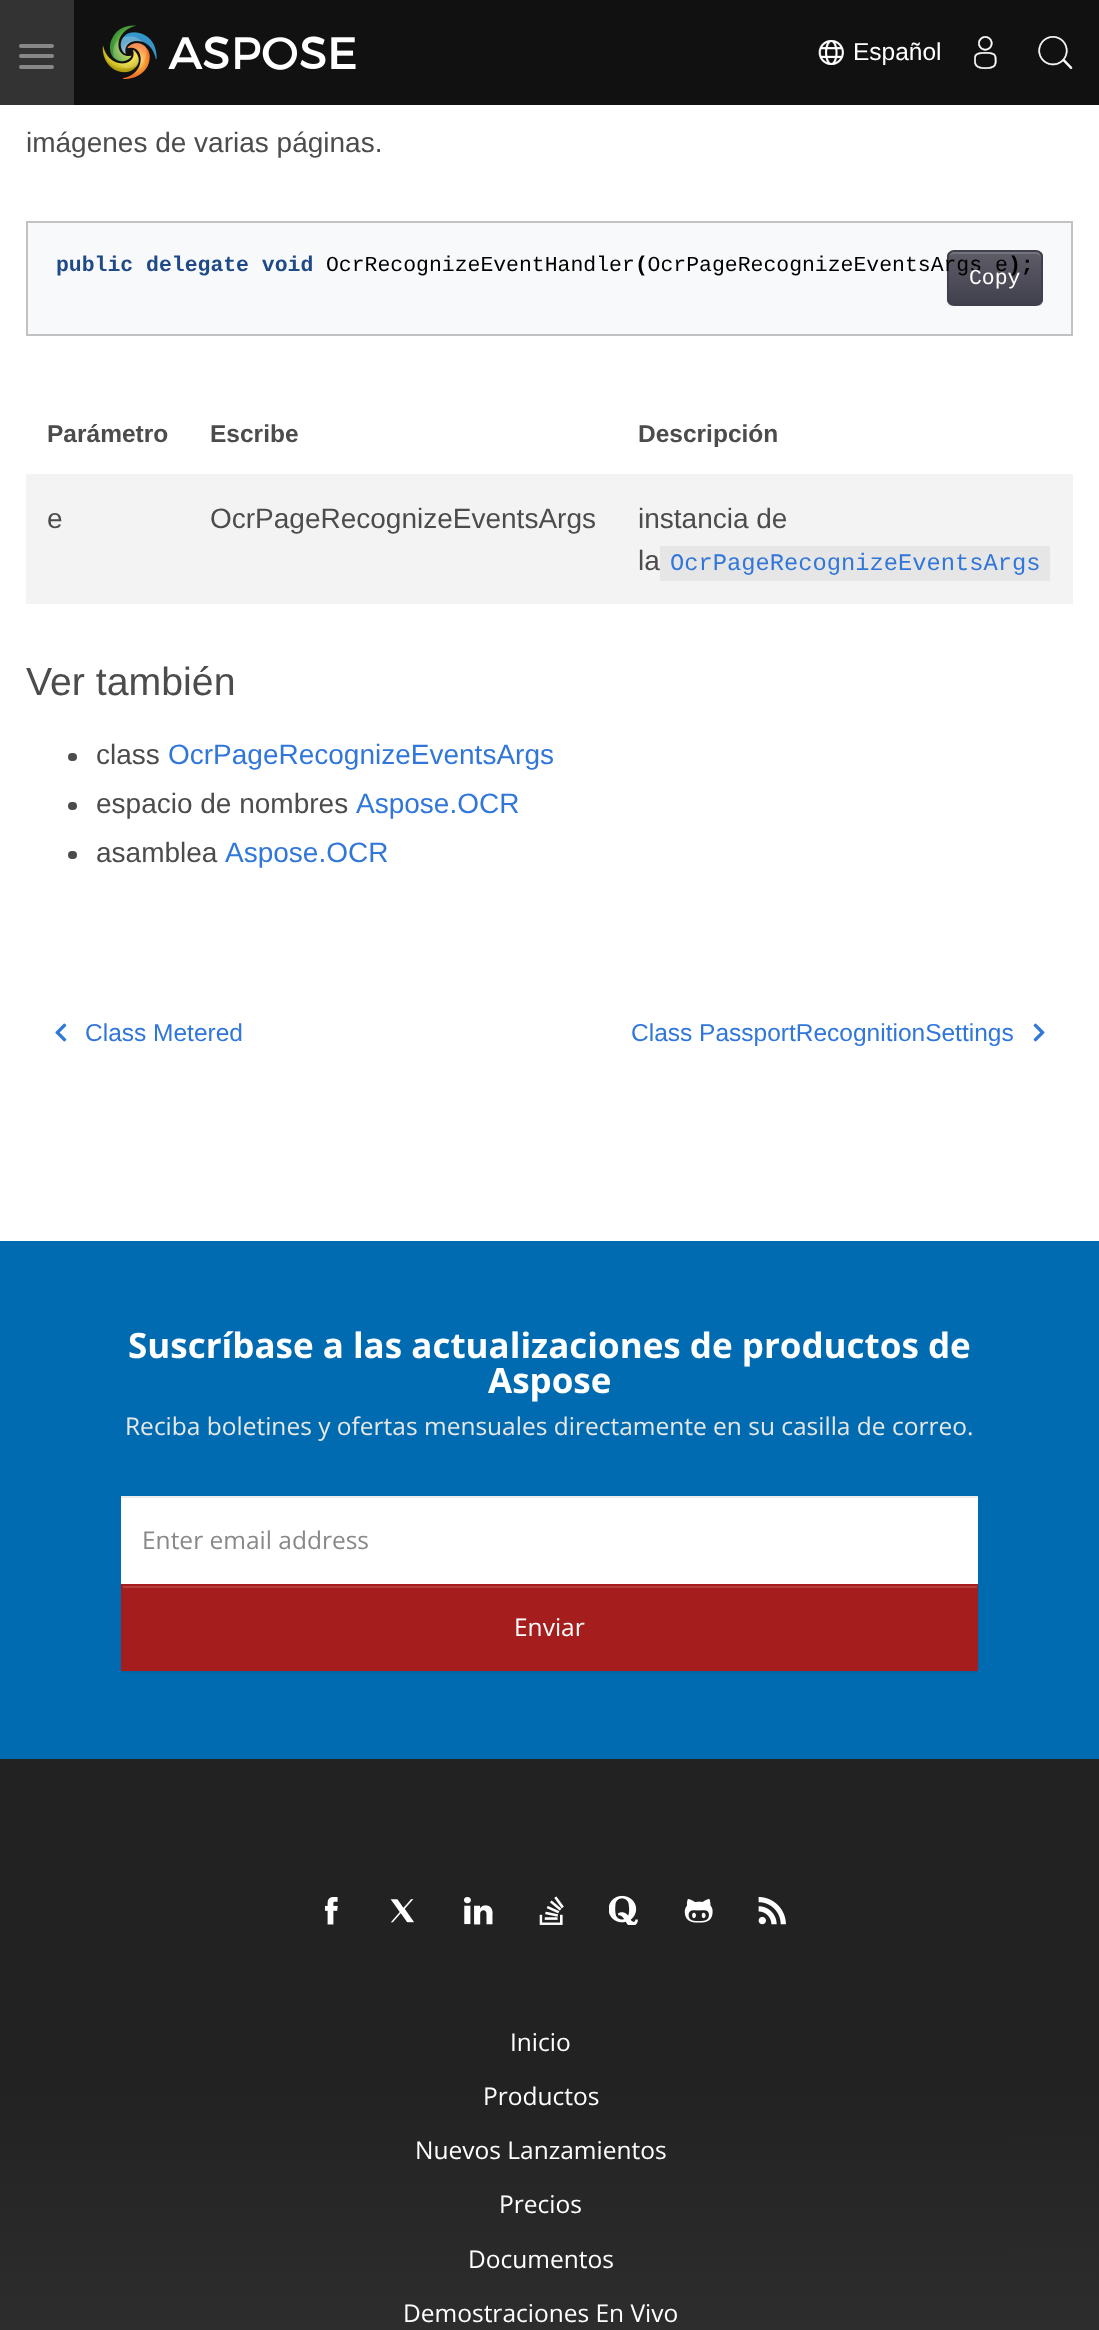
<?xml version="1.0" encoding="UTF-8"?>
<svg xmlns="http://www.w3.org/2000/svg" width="1099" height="2330">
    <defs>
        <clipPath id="clip1"><rect x="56" y="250" width="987" height="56"/></clipPath>
        <filter id="blur1" x="-50%" y="-200%" width="200%" height="500%"><feGaussianBlur stdDeviation="1"/></filter>
        <clipPath id="clip2"><rect x="947" y="250" width="96" height="56" rx="7"/></clipPath>
        <linearGradient id="g1" gradientUnits="userSpaceOnUse" x1="995" y1="252" x2="995" y2="305"><stop offset="0" stop-color="#5D5C67"/><stop offset="1" stop-color="#403F4C"/></linearGradient>
        <linearGradient id="g2" gradientUnits="userSpaceOnUse" x1="549" y1="1759" x2="550" y2="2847"><stop offset="0.3" stop-color="#222222"/><stop offset="1" stop-color="#444444"/></linearGradient>
    </defs>
    <rect width="100%" height="100%" fill="#FFFFFF"/>
    <rect x="74" y="0" width="1025" height="105" fill="#111111"/>
    <rect x="0" y="0" width="74" height="105" fill="#333333"/>
    <rect x="19" y="44" width="35" height="4" rx="2" fill="#888888"/>
    <rect x="19" y="54" width="35" height="4" rx="2" fill="#888888"/>
    <rect x="19" y="65" width="35" height="4" rx="2" fill="#888888"/>
    <image x="102" y="25" width="254" height="55" href="img_01.png"/>
    <image x="818" y="40" width="26" height="25" href="img_02.png"/>
    <text x="853" y="60" font-family="Liberation Sans" font-size="24.5" fill="#FFFFFF">Español</text>
    <image x="974" y="36" width="23" height="34" href="img_03.png"/>
    <image x="1038" y="36" width="35" height="34" href="img_04.png"/>
    <text x="26" y="152" font-family="Liberation Sans" font-size="28" fill="#4C4C4C">imágenes de varias páginas.</text>
    <rect x="27" y="222" width="1045" height="113" fill="#F8F9FA" stroke="#C2C2C2" stroke-width="2"/>
    <text x="56" y="271" font-family="Liberation Mono" font-size="21.45" font-weight="700" fill="#204A87">public delegate void</text>
    <g clip-path="url(#clip1)">
        <rect x="947" y="252" width="96" height="56" rx="7" fill="#000000" fill-opacity="0.07" filter="url(#blur1)"/>
    </g>
    <g clip-path="url(#clip2)">
        <rect x="947" y="252" width="96" height="53" fill="url(#g1)"/>
    </g>
    <path d="M 954 254 H 1036 C 1039 254 1041 256 1041 259 V 257 C 1041 254 1039 252 1036 252 H 954 C 952 252 949 254 949 256 C 950 255 952 254 954 254 Z" fill="#75747D"/>
    <rect x="948" y="251" width="94" height="54" rx="6" fill="none" stroke="#403F4C" stroke-width="2"/>
    <text x="326" y="271" font-family="Liberation Mono" font-size="21.45" fill="#000000">OcrRecognizeEventHandler OcrPageRecognizeEventsArgs e</text>
    <text x="635" y="271" font-family="Liberation Mono" font-size="21.45" font-weight="700" fill="#000000">(</text>
    <text x="1008" y="271" font-family="Liberation Mono" font-size="21.45" font-weight="700" fill="#000000">);</text>
    <text x="969" y="284" font-family="Liberation Mono" font-size="21.45" fill="#FFFFFF">Copy</text>
    <text x="47" y="442" font-family="Liberation Sans" font-size="24.5" font-weight="700" fill="#4C4C4C">Parámetro</text>
    <text x="210" y="442" font-family="Liberation Sans" font-size="24.5" font-weight="700" fill="#4C4C4C">Escribe</text>
    <text x="638" y="442" font-family="Liberation Sans" font-size="24.5" font-weight="700" fill="#4C4C4C">Descripción</text>
    <rect x="26" y="474" width="1047" height="130" fill="#F3F3F3"/>
    <text x="47" y="528" font-family="Liberation Sans" font-size="28" fill="#4C4C4C">e</text>
    <text x="210" y="528" font-family="Liberation Sans" font-size="28" fill="#4C4C4C">OcrPageRecognizeEventsArgs</text>
    <text font-family="Liberation Sans" font-size="28" fill="#4C4C4C">
        <tspan x="638" y="528">instancia de</tspan>
        <tspan x="638" y="570">la</tspan>
    </text>
    <rect x="660" y="546" width="390" height="35" fill="#000000" fill-opacity="0.05"/>
    <text x="670" y="570" font-family="Liberation Mono" font-size="23.75" fill="#3176D9">OcrPageRecognizeEventsArgs</text>
    <text x="26" y="695" font-family="Liberation Sans" font-size="39.25" fill="#4C4C4C">Ver también</text>
    <rect x="68" y="753" width="9" height="8" rx="4" fill="#4C4C4C"/>
    <text x="96" y="764" font-family="Liberation Sans" font-size="28" fill="#4C4C4C">class</text>
    <text x="168" y="764" font-family="Liberation Sans" font-size="28" fill="#3176D9">OcrPageRecognizeEventsArgs</text>
    <rect x="68" y="802" width="9" height="8" rx="4" fill="#4C4C4C"/>
    <text x="96" y="813" font-family="Liberation Sans" font-size="28" fill="#4C4C4C">espacio de nombres</text>
    <text x="356" y="813" font-family="Liberation Sans" font-size="28" fill="#3176D9">Aspose.OCR</text>
    <rect x="68" y="851" width="9" height="8" rx="4" fill="#4C4C4C"/>
    <text x="96" y="862" font-family="Liberation Sans" font-size="28" fill="#4C4C4C">asamblea</text>
    <text x="225" y="862" font-family="Liberation Sans" font-size="28" fill="#3176D9">Aspose.OCR</text>
    <image x="55" y="1023" width="12" height="19" href="img_05.png"/>
    <text x="85" y="1041" font-family="Liberation Sans" font-size="24.5" fill="#3176D9">Class Metered</text>
    <text x="631" y="1041" font-family="Liberation Sans" font-size="24.5" fill="#3176D9">Class PassportRecognitionSettings</text>
    <image x="1033" y="1023" width="12" height="19" href="img_06.png"/>
    <rect x="0" y="1241" width="1099" height="518" fill="#006BB0"/>
    <text x="128" y="1358" font-family="Open Sans" font-size="35" font-weight="700" fill="#FFFFFF">Suscríbase a las actualizaciones de productos de</text>
    <text x="488" y="1393" font-family="Open Sans" font-size="35" font-weight="700" fill="#FFFFFF">Aspose</text>
    <text x="125" y="1435" font-family="Open Sans" font-size="24.5" fill="#E8E8E8">Reciba boletines y ofertas mensuales directamente en su casilla de correo.</text>
    <rect x="121" y="1498" width="857" height="86" fill="#FFFFFF"/>
    <rect x="121" y="1496" width="857" height="2" fill="#ECECEC"/>
    <text x="142" y="1549" font-family="Open Sans" font-size="24.5" fill="#888888">Enter email address</text>
    <rect x="121" y="1586" width="857" height="87" fill="#000000" fill-opacity="0.07" filter="url(#blur1)"/>
    <rect x="121" y="1584" width="857" height="87" fill="#A51E1D"/>
    <rect x="123" y="1586" width="854" height="2" fill="#B3403F"/>
    <text x="514" y="1636" font-family="Open Sans" font-size="24.5" fill="#FFFFFF">Enviar</text>
    <rect x="0" y="1759" width="1099" height="571" fill="url(#g2)"/>
    <image x="324" y="1897" width="14" height="28" href="img_07.png"/>
    <image x="390" y="1899" width="24" height="24" href="img_08.png"/>
    <image x="464" y="1897" width="29" height="28" href="img_09.png"/>
    <image x="539" y="1896" width="25" height="29" href="img_10.png"/>
    <image x="609" y="1895" width="29" height="30" href="img_11.png"/>
    <image x="684" y="1898" width="29" height="25" href="img_12.png"/>
    <image x="758" y="1896" width="28" height="29" href="img_13.png"/>
    <text x="510" y="2051" font-family="Open Sans" font-size="24.5" fill="#FFFFFF">Inicio</text>
    <text x="483" y="2105" font-family="Open Sans" font-size="24.5" fill="#FFFFFF">Productos</text>
    <text x="415" y="2159" font-family="Open Sans" font-size="24.5" fill="#FFFFFF">Nuevos Lanzamientos</text>
    <text x="499" y="2213" font-family="Open Sans" font-size="24.5" fill="#FFFFFF">Precios</text>
    <text x="468" y="2268" font-family="Open Sans" font-size="24.5" fill="#FFFFFF">Documentos</text>
    <text x="403" y="2322" font-family="Open Sans" font-size="24.5" fill="#FFFFFF">Demostraciones En Vivo</text>
</svg>
